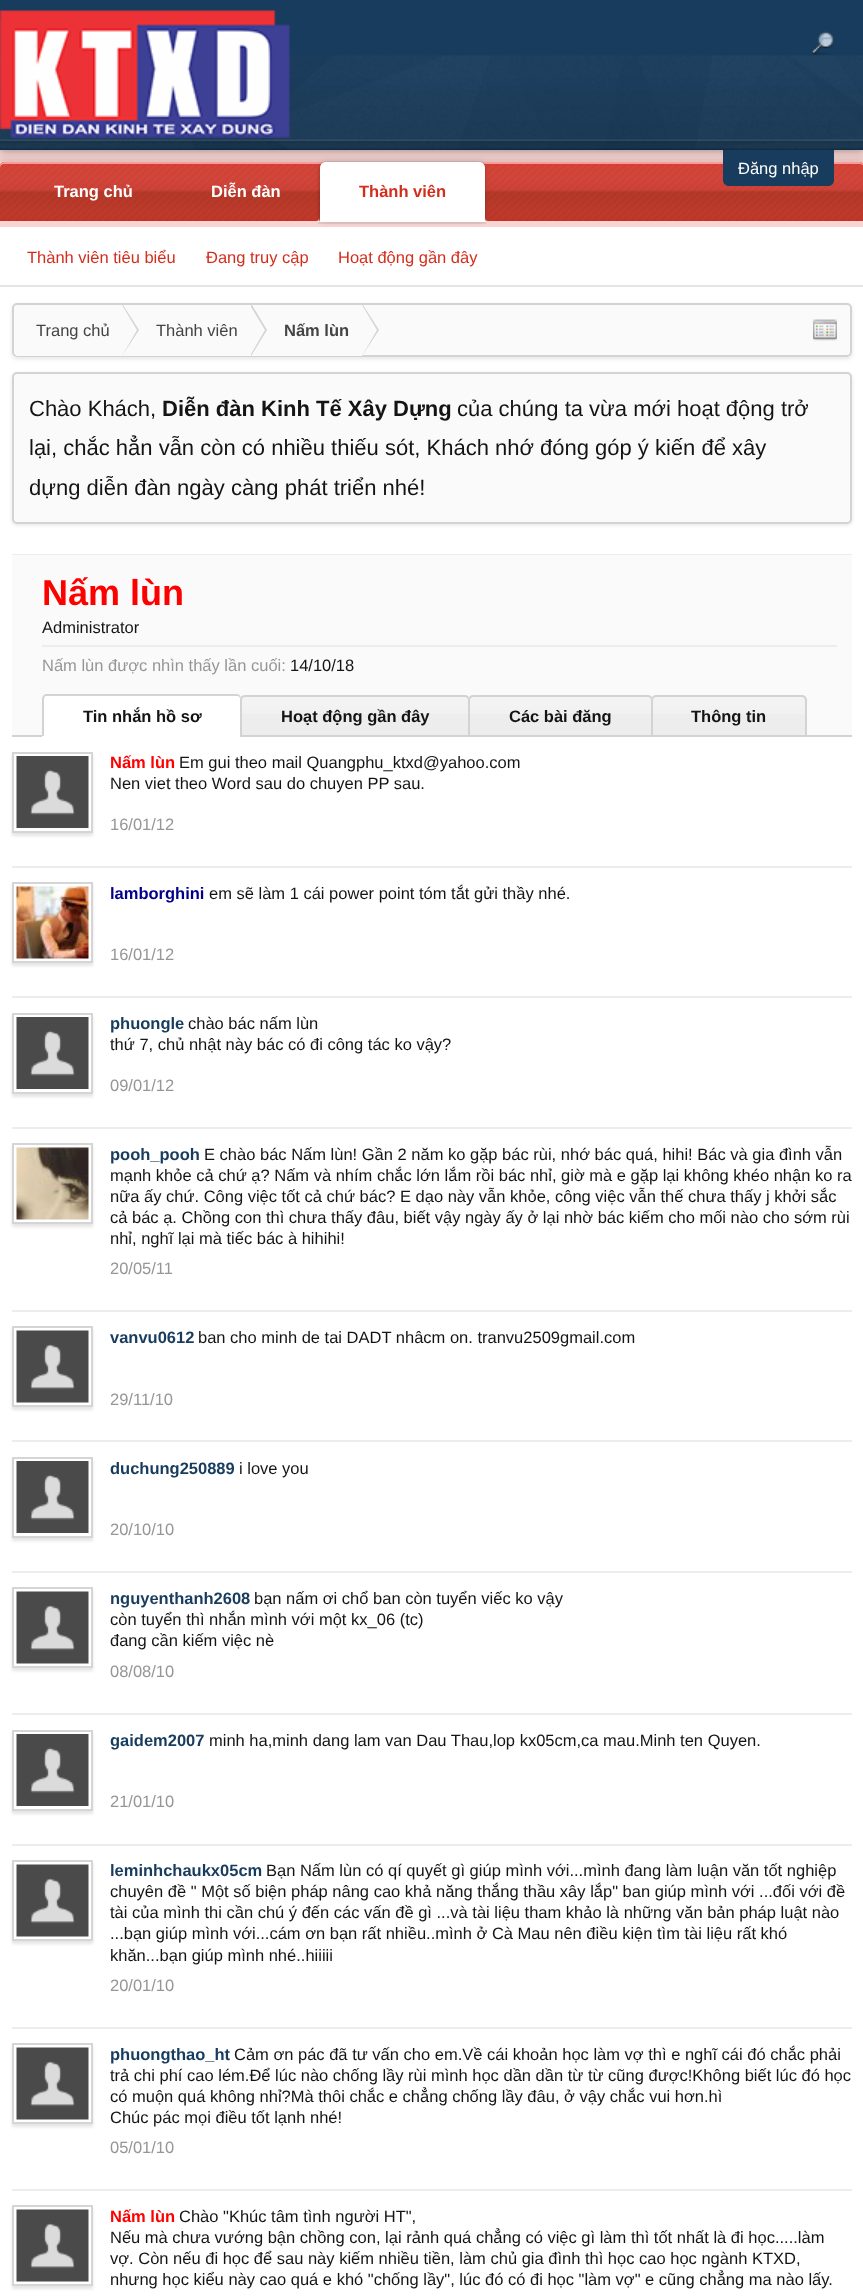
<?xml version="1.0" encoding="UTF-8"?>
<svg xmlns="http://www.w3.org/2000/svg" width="863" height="2296">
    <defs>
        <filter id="blur1" x="-50%" y="-200%" width="200%" height="500%"><feGaussianBlur stdDeviation="4"/></filter>
        <clipPath id="clip1"><rect x="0" y="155" width="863" height="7"/></clipPath>
        <filter id="blur2" x="-50%" y="-200%" width="200%" height="500%"><feGaussianBlur stdDeviation="3"/></filter>
        <clipPath id="clip2"><path d="M 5 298 H 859 V 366 H 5 Z M 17 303 H 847 C 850 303 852 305 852 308 V 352 C 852 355 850 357 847 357 H 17 C 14 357 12 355 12 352 V 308 C 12 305 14 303 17 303 Z" clip-rule="evenodd"/></clipPath>
        <filter id="blur3" x="-50%" y="-200%" width="200%" height="500%"><feGaussianBlur stdDeviation="2"/></filter>
        <clipPath id="clip3"><rect x="14" y="305" width="837" height="51" rx="3"/></clipPath>
        <filter id="blur4" x="-50%" y="-200%" width="200%" height="500%"><feGaussianBlur stdDeviation="1.5"/></filter>
        <clipPath id="clip4"><path d="M 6 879 H 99 V 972 H 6 Z M 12 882 H 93 V 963 H 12 Z" clip-rule="evenodd"/></clipPath>
        <clipPath id="clip5"><path d="M 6 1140 H 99 V 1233 H 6 Z M 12 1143 H 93 V 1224 H 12 Z" clip-rule="evenodd"/></clipPath>
        <clipPath id="clip6"><path d="M 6 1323 H 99 V 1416 H 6 Z M 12 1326 H 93 V 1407 H 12 Z" clip-rule="evenodd"/></clipPath>
        <clipPath id="clip7"><path d="M 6 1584 H 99 V 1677 H 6 Z M 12 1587 H 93 V 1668 H 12 Z" clip-rule="evenodd"/></clipPath>
        <clipPath id="clip8"><path d="M 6 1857 H 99 V 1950 H 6 Z M 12 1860 H 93 V 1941 H 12 Z" clip-rule="evenodd"/></clipPath>
        <clipPath id="clip9"><path d="M 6 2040 H 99 V 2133 H 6 Z M 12 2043 H 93 V 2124 H 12 Z" clip-rule="evenodd"/></clipPath>
        <clipPath id="clip10"><path d="M 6 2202 H 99 V 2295 H 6 Z M 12 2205 H 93 V 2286 H 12 Z" clip-rule="evenodd"/></clipPath>
    </defs>
    <rect width="100%" height="100%" fill="#F7D5D2"/>
    <rect x="0" y="2" width="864" height="150" fill="#000000" fill-opacity="0.3" filter="url(#blur1)"/>
    <rect x="0" y="0" width="863" height="150" fill="#183C5D"/>
    <image x="0" y="55" width="863" height="95" href="img_01.png"/>
    <image x="0" y="10" width="290" height="128" href="img_02.png"/>
    <image x="811" y="31" width="23" height="24" href="img_03.png"/>
    <rect x="0" y="287" width="863" height="2009" fill="#FFFFFF"/>
    <g clip-path="url(#clip1)">
        <rect x="0" y="158" width="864" height="123" fill="#000000" fill-opacity="0.1" filter="url(#blur2)"/>
    </g>
    <path d="M 5 162 H 859 C 862 162 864 164 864 167 V 221 H 0 V 167 C 0 164 2 162 5 162 Z" fill="#D32E1D"/>
    <image x="0" y="162" width="863" height="59" href="img_04.png"/>
    <path d="M 4 164 H 860 C 862 164 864 166 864 168 V 167 C 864 164 862 162 859 162 H 5 C 2 162 0 164 0 167 V 168 C 0 166 2 164 4 164 Z" fill="#FF9999"/>
    <path d="M 723 150 H 834 V 180 C 834 183.5 831.5 186 828 186 H 729 C 725.5 186 723 183.5 723 180 Z" fill="#183C5D"/>
    <text x="738" y="174" font-family="Liberation Sans" font-size="16.5" fill="#FFFFFF">Đăng nhập</text>
    <text x="211" y="197" font-family="Liberation Sans" font-size="16.5" font-weight="700" fill="#FFFFFF">Diễn đàn</text>
    <path d="M 326 162 H 478 C 482 162 485 165 485 169 V 223 H 319 V 169 C 319 165 322 162 326 162 Z" fill="none" stroke="#000000" stroke-opacity="0.07" stroke-width="2"/>
    <rect x="320" y="162" width="165" height="60" rx="6" fill="#000000" fill-opacity="0.12" filter="url(#blur2)"/>
    <path d="M 326 162 H 479 C 482.5 162 485 164.5 485 168 V 222 H 320 V 168 C 320 164.5 322.5 162 326 162 Z" fill="#FFFFFF"/>
    <text x="359" y="197" font-family="Liberation Sans" font-size="16.5" font-weight="700" fill="#D32E1D">Thành viên</text>
    <image x="315" y="217" width="5" height="5" href="img_05.png"/>
    <image x="484" y="217" width="5" height="5" href="img_06.png"/>
    <rect x="0" y="227" width="863" height="58" fill="#FFFFFF"/>
    <rect x="0" y="285" width="863" height="2" fill="#E5E5E5"/>
    <text x="27" y="263" font-family="Liberation Sans" font-size="16.5" fill="#D32E1D">Thành viên tiêu biểu</text>
    <text x="206" y="263" font-family="Liberation Sans" font-size="16.5" fill="#D32E1D">Đang truy cập</text>
    <text x="338" y="263" font-family="Liberation Sans" font-size="16.5" fill="#D32E1D">Hoạt động gần đây</text>
    <text x="54" y="197" font-family="Liberation Sans" font-size="16.5" font-weight="700" fill="#FFFFFF">Trang chủ</text>
    <g clip-path="url(#clip2)">
        <rect x="12" y="305" width="840" height="54" rx="5" fill="#000000" fill-opacity="0.1" filter="url(#blur3)"/>
    </g>
    <rect x="13" y="304" width="838" height="52" rx="4" fill="#FAFAFA" stroke="#D3D3D3" stroke-width="2"/>
    <g clip-path="url(#clip3)">
        <path d="M 20 305 H 122 V 357 H 20 C 16.5 357 14 354.5 14 351 V 311 C 14 307.5 16.5 305 20 305 Z" fill="#FAFAFA"/>
    </g>
    <text x="36" y="336" font-family="Liberation Sans" font-size="16.5" fill="#444444">Trang chủ</text>
    <rect x="122" y="355" width="239" height="1" fill="#FAFAFA"/>
    <path d="M 122 356 L 139 330 L 123 305 H 122 Z" fill="#D3D3D3"/>
    <path d="M 122 305 L 137 330 L 122 356 H 121 V 305 Z" fill="#FAFAFA"/>
    <text x="156" y="336" font-family="Liberation Sans" font-size="16.5" fill="#444444">Thành viên</text>
    <path d="M 251 356 L 267 330 L 252 305 H 251 Z" fill="#D3D3D3"/>
    <path d="M 250 305 L 265 330 L 250 356 H 249 V 305 Z" fill="#FAFAFA"/>
    <text x="284" y="336" font-family="Liberation Sans" font-size="16.5" font-weight="700" fill="#444444">Nấm lùn</text>
    <path d="M 362 356 L 379 330 L 363 305 H 362 Z" fill="#D3D3D3"/>
    <path d="M 362 305 L 377 330 L 362 356 H 361 V 305 Z" fill="#FAFAFA"/>
    <image x="813" y="319" width="24" height="22" href="img_07.png"/>
    <rect x="12" y="374" width="840" height="151" rx="5" fill="#000000" fill-opacity="0.1" filter="url(#blur3)"/>
    <rect x="13" y="373" width="838" height="150" rx="4" fill="#FAFAFA" stroke="#D3D3D3" stroke-width="2"/>
    <text x="29" y="416" font-family="Liberation Sans" font-size="22" fill="#141414">Chào Khách,</text>
    <text x="162" y="416" font-family="Liberation Sans" font-size="22" font-weight="700" fill="#141414">Diễn đàn Kinh Tế Xây Dựng</text>
    <text x="457" y="416" font-family="Liberation Sans" font-size="22" fill="#141414">của chúng ta vừa mới hoạt động trở</text>
    <text font-family="Liberation Sans" font-size="22" fill="#141414">
        <tspan x="29" y="455">lại, chắc hẳn vẫn còn có nhiều thiếu sót, Khách nhớ đóng góp ý kiến để xây</tspan>
        <tspan x="29" y="495">dựng diễn đàn ngày càng phát triển nhé!</tspan>
    </text>
    <rect x="12" y="554" width="840" height="1" fill="#EDEDED"/>
    <rect x="12" y="555" width="840" height="180" fill="#FAFAFA"/>
    <text x="42" y="605" font-family="Liberation Sans" font-size="36" font-weight="700" fill="#FF0000">Nấm lùn</text>
    <text x="42" y="633" font-family="Liberation Sans" font-size="16.5" fill="#141414">Administrator</text>
    <rect x="42" y="645" width="795" height="2" fill="#EDEDED"/>
    <text x="42" y="671" font-family="Liberation Sans" font-size="16.5" fill="#969696">Nấm lùn được nhìn thấy lần cuối:</text>
    <text x="290" y="671" font-family="Liberation Sans" font-size="16.5" fill="#141414">14/10/18</text>
    <rect x="12" y="735" width="840" height="2" fill="#D3D3D3"/>
    <path d="M 47 695 H 237 C 240 695 242 697 242 700 V 737 H 42 V 700 C 42 697 44 695 47 695 Z" fill="#FFFFFF"/>
    <path d="M 46 694 H 237 C 239 694 242 697 242 699 V 736 H 42 V 699 C 42 697 44 694 46 694 Z M 46 696 H 237 C 239 696 240 697 240 699 V 736 H 44 V 699 C 44 697 45 696 46 696 Z" fill="#D3D3D3" fill-rule="evenodd"/>
    <text x="83" y="722" font-family="Liberation Sans" font-size="16.5" font-weight="700" fill="#141414">Tin nhắn hồ sơ</text>
    <path d="M 245 695 H 465 C 468 695 470 697 470 700 V 737 H 240 V 700 C 240 697 242 695 245 695 Z" fill="#EDEDED"/>
    <image x="240" y="696" width="229" height="18" href="img_08.png"/>
    <path d="M 245 696 H 465 C 467 696 469 698 469 700 V 736 H 241 V 700 C 241 698 243 696 245 696 Z" fill="none" stroke="#D3D3D3" stroke-width="2"/>
    <text x="281" y="722" font-family="Liberation Sans" font-size="16.5" font-weight="700" fill="#141414">Hoạt động gần đây</text>
    <path d="M 473 695 H 648 C 651 695 653 697 653 700 V 737 H 468 V 700 C 468 697 470 695 473 695 Z" fill="#EDEDED"/>
    <image x="468" y="696" width="184" height="18" href="img_09.png"/>
    <path d="M 473 696 H 648 C 650 696 652 698 652 700 V 736 H 469 V 700 C 469 698 471 696 473 696 Z" fill="none" stroke="#D3D3D3" stroke-width="2"/>
    <text x="509" y="722" font-family="Liberation Sans" font-size="16.5" font-weight="700" fill="#141414">Các bài đăng</text>
    <path d="M 656 695 H 802 C 805 695 807 697 807 700 V 737 H 651 V 700 C 651 697 653 695 656 695 Z" fill="#EDEDED"/>
    <image x="651" y="696" width="156" height="18" href="img_10.png"/>
    <path d="M 656 696 H 802 C 804 696 806 698 806 700 V 736 H 652 V 700 C 652 698 654 696 656 696 Z" fill="none" stroke="#D3D3D3" stroke-width="2"/>
    <text x="691" y="722" font-family="Liberation Sans" font-size="16.5" font-weight="700" fill="#141414">Thông tin</text>
    <rect x="12" y="866" width="840" height="2" fill="#EDEDED"/>
    <rect x="12" y="755" width="81" height="81" fill="#000000" fill-opacity="0.1" filter="url(#blur4)"/>
    <rect x="13" y="753" width="79" height="79" fill="#FFFFFF" stroke="#D5D5D5" stroke-width="2"/>
    <image x="16" y="756" width="73" height="72" href="img_11.png"/>
    <text x="110" y="768" font-family="Liberation Sans" font-size="16.5" font-weight="700" fill="#FF0000">Nấm lùn</text>
    <text x="179" y="768" font-family="Liberation Sans" font-size="16.5" fill="#141414">Em gui theo mail Quangphu_ktxd@yahoo.com</text>
    <text x="110" y="789" font-family="Liberation Sans" font-size="16.5" fill="#141414">Nen viet theo Word sau do chuyen PP sau.</text>
    <text x="110" y="830" font-family="Liberation Sans" font-size="16.5" fill="#969696">16/01/12</text>
    <rect x="12" y="996" width="840" height="2" fill="#EDEDED"/>
    <g clip-path="url(#clip4)">
        <rect x="12" y="885" width="81" height="81" fill="#000000" fill-opacity="0.1" filter="url(#blur4)"/>
    </g>
    <rect x="13" y="883" width="79" height="79" fill="none" stroke="#D5D5D5" stroke-width="2"/>
    <image x="16" y="886" width="73" height="73" href="img_12.png"/>
    <text x="110" y="899" font-family="Liberation Sans" font-size="16.5" font-weight="700" fill="#00008B">lamborghini</text>
    <text x="209" y="899" font-family="Liberation Sans" font-size="16.5" fill="#141414">em sẽ làm 1 cái power point tóm tắt gửi thầy nhé.</text>
    <text x="110" y="960" font-family="Liberation Sans" font-size="16.5" fill="#969696">16/01/12</text>
    <rect x="12" y="1127" width="840" height="2" fill="#EDEDED"/>
    <rect x="12" y="1016" width="81" height="81" fill="#000000" fill-opacity="0.1" filter="url(#blur4)"/>
    <rect x="13" y="1014" width="79" height="79" fill="#FFFFFF" stroke="#D5D5D5" stroke-width="2"/>
    <image x="16" y="1017" width="73" height="72" href="img_11.png"/>
    <text x="110" y="1029" font-family="Liberation Sans" font-size="16.5" font-weight="700" fill="#183C5D">phuongle</text>
    <text x="188" y="1029" font-family="Liberation Sans" font-size="16.5" fill="#141414">chào bác nấm lùn</text>
    <text x="110" y="1050" font-family="Liberation Sans" font-size="16.5" fill="#141414">thứ 7, chủ nhật này bác có đi công tác ko vậy?</text>
    <text x="110" y="1091" font-family="Liberation Sans" font-size="16.5" fill="#969696">09/01/12</text>
    <rect x="12" y="1310" width="840" height="2" fill="#EDEDED"/>
    <g clip-path="url(#clip5)">
        <rect x="12" y="1146" width="81" height="81" fill="#000000" fill-opacity="0.1" filter="url(#blur4)"/>
    </g>
    <rect x="13" y="1144" width="79" height="79" fill="none" stroke="#D5D5D5" stroke-width="2"/>
    <image x="16" y="1147" width="73" height="73" href="img_13.png"/>
    <text x="110" y="1160" font-family="Liberation Sans" font-size="16.5" font-weight="700" fill="#183C5D">pooh_pooh</text>
    <text x="204" y="1160" font-family="Liberation Sans" font-size="16.5" fill="#141414">E chào bác Nấm lùn! Gần 2 năm ko gặp bác rùi, nhớ bác quá, hihi! Bác và gia đình vẫn</text>
    <text font-family="Liberation Sans" font-size="16.5" fill="#141414">
        <tspan x="110" y="1181">mạnh khỏe cả chứ ạ? Nấm và nhím chắc lớn lắm rồi bác nhỉ, giờ mà e gặp lại không khéo nhận ko ra</tspan>
        <tspan x="110" y="1202">nữa ấy chứ. Công việc tốt cả chứ bác? E dạo này vẫn khỏe, công việc vẫn thế chưa thấy j khởi sắc</tspan>
        <tspan x="110" y="1223">cả bác ạ. Chồng con thì chưa thấy đâu, biết vậy ngày ấy ở lại nhờ bác kiếm cho mối nào cho sớm rùi</tspan>
        <tspan x="110" y="1244">nhỉ, nghĩ lại mà tiếc bác à hihihi!</tspan>
    </text>
    <text x="110" y="1274" font-family="Liberation Sans" font-size="16.5" fill="#969696">20/05/11</text>
    <rect x="12" y="1440" width="840" height="2" fill="#EDEDED"/>
    <g clip-path="url(#clip6)">
        <rect x="12" y="1329" width="81" height="81" fill="#000000" fill-opacity="0.1" filter="url(#blur4)"/>
    </g>
    <rect x="13" y="1327" width="79" height="79" fill="none" stroke="#D5D5D5" stroke-width="2"/>
    <image x="16" y="1330" width="73" height="73" href="img_14.png"/>
    <text x="110" y="1343" font-family="Liberation Sans" font-size="16.5" font-weight="700" fill="#183C5D">vanvu0612</text>
    <text x="198" y="1343" font-family="Liberation Sans" font-size="16.5" fill="#141414">ban cho minh de tai DADT nhâcm on. tranvu2509gmail.com</text>
    <text x="110" y="1405" font-family="Liberation Sans" font-size="16.5" fill="#969696">29/11/10</text>
    <rect x="12" y="1571" width="840" height="2" fill="#EDEDED"/>
    <rect x="12" y="1460" width="81" height="81" fill="#000000" fill-opacity="0.1" filter="url(#blur4)"/>
    <rect x="13" y="1458" width="79" height="79" fill="#FFFFFF" stroke="#D5D5D5" stroke-width="2"/>
    <image x="16" y="1461" width="73" height="72" href="img_11.png"/>
    <text x="110" y="1474" font-family="Liberation Sans" font-size="16.5" font-weight="700" fill="#183C5D">duchung250889</text>
    <text x="239" y="1474" font-family="Liberation Sans" font-size="16.5" fill="#141414">i love you</text>
    <text x="110" y="1535" font-family="Liberation Sans" font-size="16.5" fill="#969696">20/10/10</text>
    <rect x="12" y="1713" width="840" height="2" fill="#EDEDED"/>
    <g clip-path="url(#clip7)">
        <rect x="12" y="1590" width="81" height="81" fill="#000000" fill-opacity="0.1" filter="url(#blur4)"/>
    </g>
    <rect x="13" y="1588" width="79" height="79" fill="none" stroke="#D5D5D5" stroke-width="2"/>
    <image x="16" y="1591" width="73" height="73" href="img_14.png"/>
    <text x="110" y="1604" font-family="Liberation Sans" font-size="16.5" font-weight="700" fill="#183C5D">nguyenthanh2608</text>
    <text x="254" y="1604" font-family="Liberation Sans" font-size="16.5" fill="#141414">bạn nấm ơi chổ ban còn tuyển viếc ko vậy</text>
    <text font-family="Liberation Sans" font-size="16.5" fill="#141414">
        <tspan x="110" y="1625">còn tuyển thì nhắn mình với một kx_06 (tc)</tspan>
        <tspan x="110" y="1646">đang cần kiếm việc nè</tspan>
    </text>
    <text x="110" y="1677" font-family="Liberation Sans" font-size="16.5" fill="#969696">08/08/10</text>
    <rect x="12" y="1844" width="840" height="2" fill="#EDEDED"/>
    <rect x="12" y="1733" width="81" height="81" fill="#000000" fill-opacity="0.1" filter="url(#blur4)"/>
    <rect x="13" y="1731" width="79" height="79" fill="#FFFFFF" stroke="#D5D5D5" stroke-width="2"/>
    <image x="16" y="1734" width="73" height="72" href="img_11.png"/>
    <text x="110" y="1746" font-family="Liberation Sans" font-size="16.5" font-weight="700" fill="#183C5D">gaidem2007</text>
    <text x="209" y="1746" font-family="Liberation Sans" font-size="16.5" fill="#141414">minh ha,minh dang lam van Dau Thau,lop kx05cm,ca mau.Minh ten Quyen.</text>
    <text x="110" y="1807" font-family="Liberation Sans" font-size="16.5" fill="#969696">21/01/10</text>
    <rect x="12" y="2027" width="840" height="2" fill="#EDEDED"/>
    <g clip-path="url(#clip8)">
        <rect x="12" y="1863" width="81" height="81" fill="#000000" fill-opacity="0.1" filter="url(#blur4)"/>
    </g>
    <rect x="13" y="1861" width="79" height="79" fill="none" stroke="#D5D5D5" stroke-width="2"/>
    <image x="16" y="1864" width="73" height="73" href="img_14.png"/>
    <text x="110" y="1876" font-family="Liberation Sans" font-size="16.5" font-weight="700" fill="#183C5D">leminhchaukx05cm</text>
    <text x="266" y="1876" font-family="Liberation Sans" font-size="16.5" fill="#141414">Bạn Nấm lùn có qí quyết gì giúp mình với...mình đang làm luận văn tốt nghiệp</text>
    <text font-family="Liberation Sans" font-size="16.5" fill="#141414">
        <tspan x="110" y="1897">chuyên đề " Một số biện pháp nâng cao khả năng thắng thầu xây lắp" ban giúp mình với ...đối với đề</tspan>
        <tspan x="110" y="1918">tài của mình thi cần chú ý đến các vấn đề gì ...và tài liệu tham khảo là những văn bản pháp luật nào</tspan>
        <tspan x="110" y="1939">...bạn giúp mình với...cám ơn bạn rất nhiều..mình ở Cà Mau nên điều kiện tìm tài liệu rất khó</tspan>
        <tspan x="110" y="1961">khăn...bạn giúp mình nhé..hiiiii</tspan>
    </text>
    <text x="110" y="1991" font-family="Liberation Sans" font-size="16.5" fill="#969696">20/01/10</text>
    <rect x="12" y="2189" width="840" height="2" fill="#EDEDED"/>
    <g clip-path="url(#clip9)">
        <rect x="12" y="2046" width="81" height="81" fill="#000000" fill-opacity="0.1" filter="url(#blur4)"/>
    </g>
    <rect x="13" y="2044" width="79" height="79" fill="none" stroke="#D5D5D5" stroke-width="2"/>
    <image x="16" y="2047" width="73" height="73" href="img_14.png"/>
    <text x="110" y="2060" font-family="Liberation Sans" font-size="16.5" font-weight="700" fill="#183C5D">phuongthao_ht</text>
    <text x="234" y="2060" font-family="Liberation Sans" font-size="16.5" fill="#141414">Cảm ơn pác đã tư vấn cho em.Về cái khoản học làm vợ thì e nghĩ cái đó chắc phải</text>
    <text font-family="Liberation Sans" font-size="16.5" fill="#141414">
        <tspan x="110" y="2081">trả chi phí cao lém.Để lúc nào chống lầy rùi mình học dần dần từ từ cũng được!Không biết lúc đó học</tspan>
        <tspan x="110" y="2102">có muộn quá không nhỉ?Mà thôi chắc e chẳng chống lầy đâu, ở vậy chắc vui hơn.hì</tspan>
        <tspan x="110" y="2123">Chúc pác mọi điều tốt lạnh nhé!</tspan>
    </text>
    <text x="110" y="2153" font-family="Liberation Sans" font-size="16.5" fill="#969696">05/01/10</text>
    <g clip-path="url(#clip10)">
        <rect x="12" y="2208" width="81" height="81" fill="#000000" fill-opacity="0.1" filter="url(#blur4)"/>
    </g>
    <rect x="13" y="2206" width="79" height="79" fill="none" stroke="#D5D5D5" stroke-width="2"/>
    <image x="16" y="2209" width="73" height="73" href="img_14.png"/>
    <text x="110" y="2222" font-family="Liberation Sans" font-size="16.5" font-weight="700" fill="#FF0000">Nấm lùn</text>
    <text x="179" y="2222" font-family="Liberation Sans" font-size="16.5" fill="#141414">Chào "Khúc tâm tình người HT",</text>
    <text font-family="Liberation Sans" font-size="16.5" fill="#141414">
        <tspan x="110" y="2243">Nếu mà chưa vướng bận chồng con, lại rảnh quá chẳng có việc gì làm thì tốt nhất là đi học.....làm</tspan>
        <tspan x="110" y="2264">vợ. Còn nếu đi học để sau này kiếm nhiều tiền, làm chủ gia đình thì học cao học ngành KTXD,</tspan>
        <tspan x="110" y="2285">nhưng học kiểu này cao quá e khó "chống lầy", lúc đó có đi học "làm vợ" e cũng chẳng ma nào lấy.</tspan>
    </text>
</svg>
